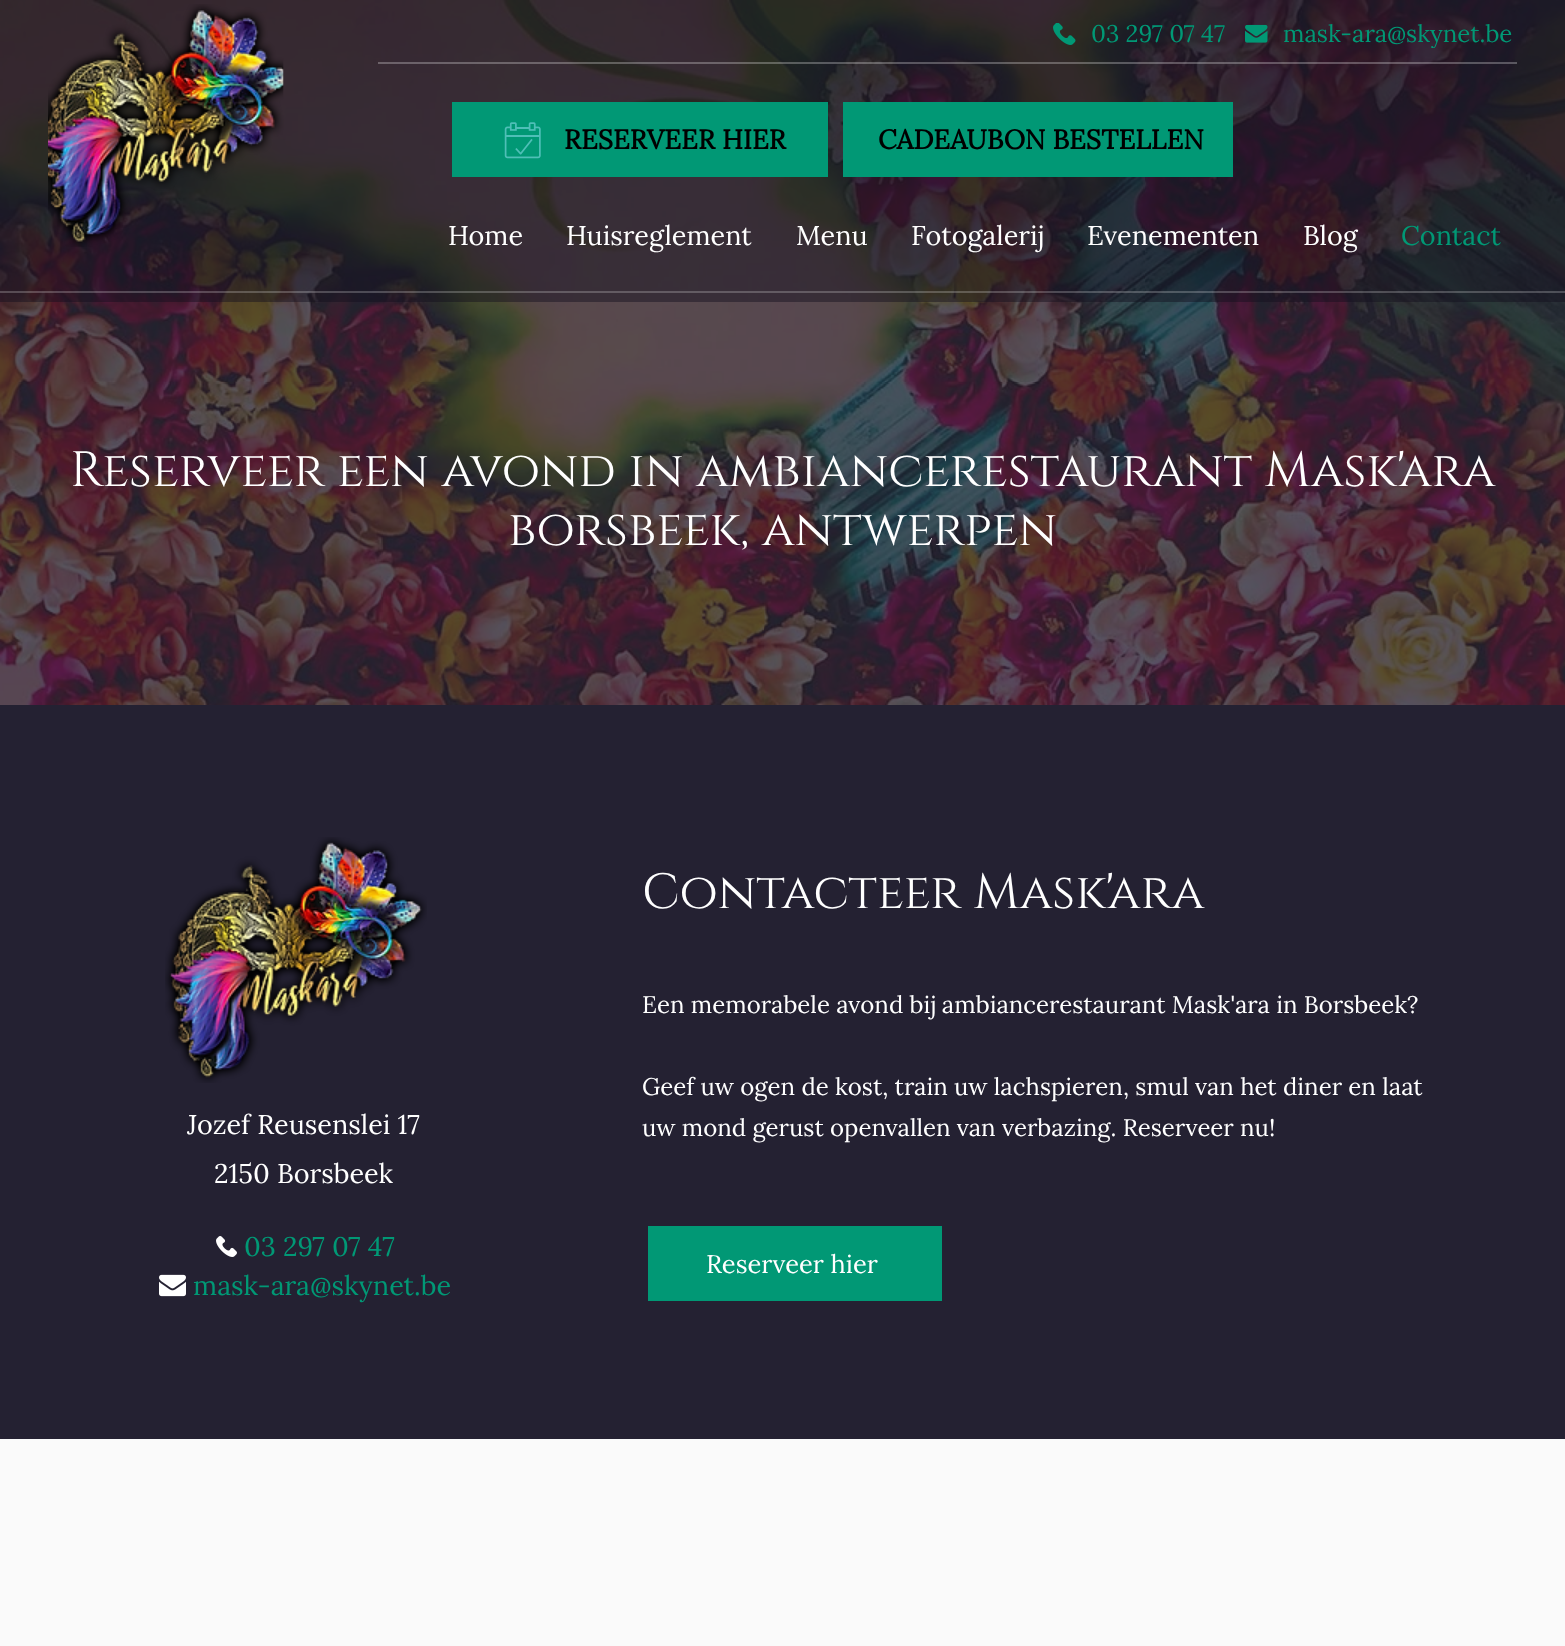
<?xml version="1.0" encoding="UTF-8"?>
<svg xmlns="http://www.w3.org/2000/svg" width="1565" height="1646">
    <defs>
        <clipPath id="clip1"><rect x="1283" y="18" width="229" height="30"/></clipPath>
    </defs>
    <rect width="100%" height="100%" fill="#FFFFFF"/>
    <image x="0" y="0" width="1565" height="705" href="img_01.png"/>
    <rect x="0" y="0" width="1565" height="302" fill="#1A1727" fill-opacity="0.87"/>
    <image x="48" y="4" width="236" height="243" href="img_02.png"/>
    <image x="1053" y="23" width="23" height="22" href="img_03.png"/>
    <text x="1091" y="42" font-family="Lora" font-size="24" fill="#019875">03 297 07 47</text>
    <image x="1245" y="24" width="23" height="19" href="img_04.png"/>
    <g clip-path="url(#clip1)">
        <text x="1283" y="42" font-family="Lora" font-size="24" fill="#019875">mask-ara@skynet.be</text>
    </g>
    <rect x="378" y="62" width="1139" height="2" fill="#FFFFFF" fill-opacity="0.27"/>
    <rect x="452" y="102" width="376" height="75" fill="#019875"/>
    <image x="504" y="122" width="37" height="37" href="img_05.png"/>
    <text x="564" y="149" font-family="Lora" font-size="27" font-weight="700" fill="#000000">RESERVEER HIER</text>
    <rect x="843" y="102" width="390" height="75" fill="#019875"/>
    <text x="878" y="149" font-family="Lora" font-size="27" font-weight="700" fill="#000000">CADEAUBON BESTELLEN</text>
    <text x="448" y="245" font-family="'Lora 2'" font-size="27" fill="#FFFFFF">Home</text>
    <text x="566" y="245" font-family="'Lora 2'" font-size="27" fill="#FFFFFF">Huisreglement</text>
    <text x="796" y="245" font-family="'Lora 2'" font-size="27" fill="#FFFFFF">Menu</text>
    <text x="911" y="245" font-family="'Lora 2'" font-size="27" fill="#FFFFFF">Fotogalerij</text>
    <text x="1087" y="245" font-family="'Lora 2'" font-size="27" fill="#FFFFFF">Evenementen</text>
    <text x="1303" y="245" font-family="'Lora 2'" font-size="27" fill="#FFFFFF">Blog</text>
    <text x="1401" y="245" font-family="'Lora 2'" font-size="27" fill="#019875">Contact</text>
    <rect x="0" y="291" width="1565" height="2" fill="#FFFFFF" fill-opacity="0.22"/>
    <rect x="0" y="302" width="1565" height="403" fill="#242132" fill-opacity="0.76"/>
    <text x="70" y="486" font-family="Cinzel" font-size="49.5" fill="#FFFFFF">Reserveer een avond in ambiancerestaurant Mask'ara</text>
    <text x="508" y="545" font-family="Cinzel" font-size="49.5" fill="#FFFFFF">borsbeek, antwerpen</text>
    <rect x="0" y="705" width="1565" height="734" fill="#242132"/>
    <image x="165" y="837" width="262" height="246" href="img_06.png"/>
    <text x="187" y="1134" font-family="Lora" font-size="27" fill="#FFFFFF">Jozef Reusenslei 17</text>
    <text x="214" y="1183" font-family="Lora" font-size="27" fill="#FFFFFF">2150 Borsbeek</text>
    <image x="216" y="1236" width="21" height="21" href="img_07.png"/>
    <text x="244" y="1256" font-family="Lora" font-size="27" fill="#019875">03 297 07 47</text>
    <image x="159" y="1274" width="27" height="23" href="img_08.png"/>
    <text x="193" y="1295" font-family="Lora" font-size="27" fill="#019875">mask-ara@skynet.be</text>
    <text x="642" y="908" font-family="Cinzel" font-size="49.5" fill="#FFFFFF">Contacteer Mask'ara</text>
    <text x="642" y="1013" font-family="Lora" font-size="24" fill="#FFFFFF">Een memorabele avond bij ambiancerestaurant Mask'ara in Borsbeek?</text>
    <text font-family="Lora" font-size="24" fill="#FFFFFF">
        <tspan x="642" y="1095">Geef uw ogen de kost, train uw lachspieren, smul van het diner en laat</tspan>
        <tspan x="642" y="1136">uw mond gerust openvallen van verbazing. Reserveer nu!</tspan>
    </text>
    <rect x="648" y="1226" width="294" height="75" fill="#019875"/>
    <text x="706" y="1273" font-family="'Lora 2'" font-size="25.5" fill="#FFFFFF">Reserveer hier</text>
    <rect x="0" y="1439" width="1565" height="207" fill="#FAFAFA"/>
</svg>
